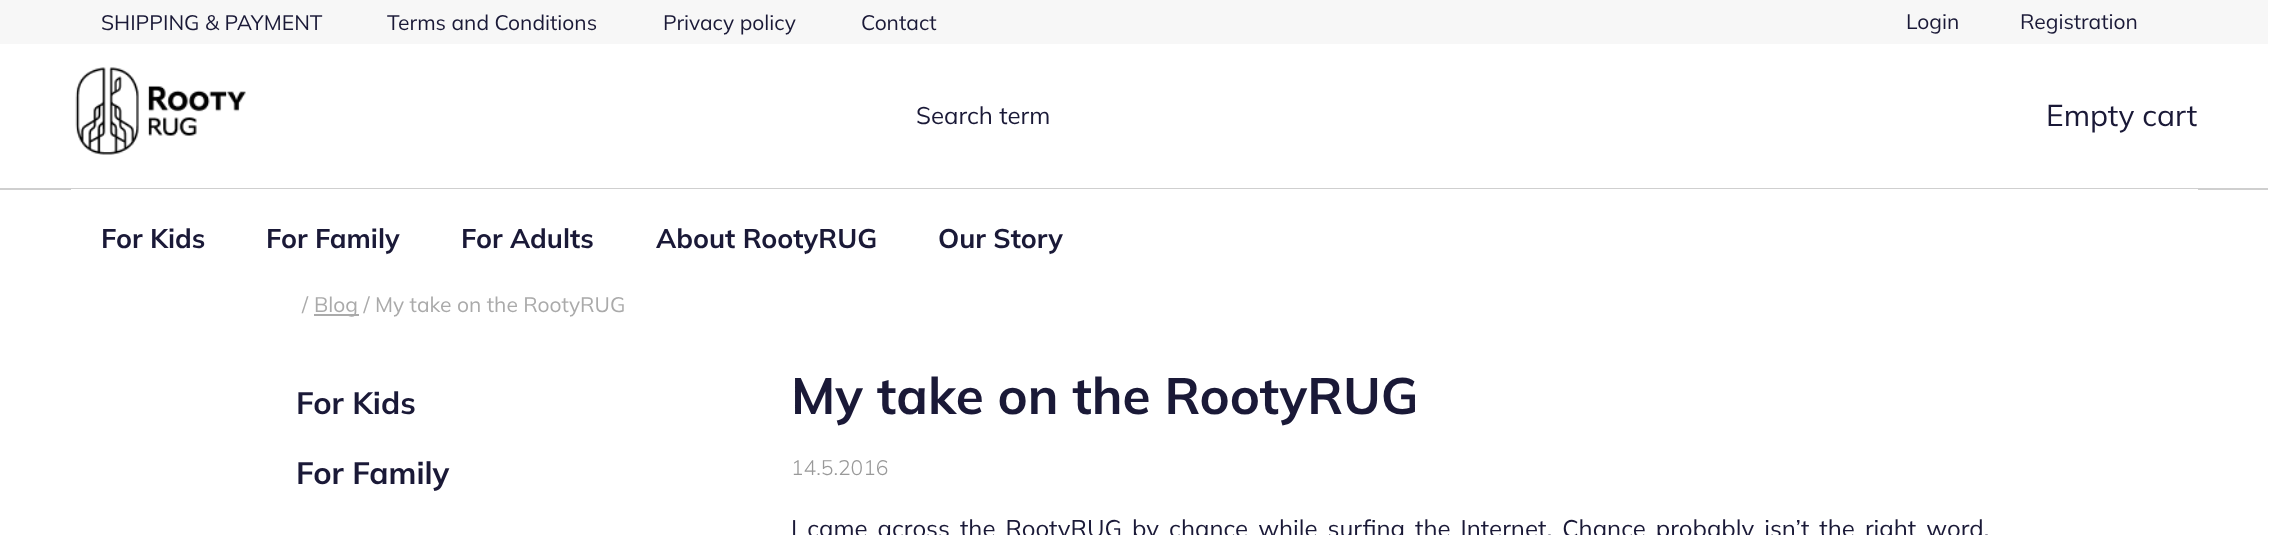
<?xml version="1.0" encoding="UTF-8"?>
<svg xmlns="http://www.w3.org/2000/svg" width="2290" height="535">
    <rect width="100%" height="100%" fill="#FFFFFF"/>
    <rect x="0" y="0" width="2268" height="44" fill="#F7F7F7"/>
    <text x="101" y="30" font-family="Mulish" font-size="21" fill="#1A1937">SHIPPING &amp; PAYMENT</text>
    <text x="387" y="30" font-family="Mulish" font-size="21" fill="#1A1937">Terms and Conditions</text>
    <text x="663" y="30" font-family="Mulish" font-size="21" fill="#1A1937">Privacy policy</text>
    <text x="861" y="30" font-family="Mulish" font-size="21" fill="#1A1937">Contact</text>
    <text x="1906" y="29" font-family="Mulish" font-size="21" fill="#1A1937">Login</text>
    <text x="2020" y="29" font-family="Mulish" font-size="21" fill="#1A1937">Registration</text>
    <image x="75" y="67" width="171" height="88" href="img_01.png"/>
    <text x="916" y="124" font-family="Mulish" font-size="24" fill="#1A1937">Search term</text>
    <text x="2046" y="126" font-family="Mulish" font-size="30" fill="#1A1937">Empty cart</text>
    <rect x="0" y="188" width="2268" height="2" fill="#CFCFCF"/>
    <rect x="71" y="189" width="2127" height="1" fill="#FFFFFF"/>
    <text x="101" y="248" font-family="Mulish" font-size="27" font-weight="700" fill="#1A1937">For Kids</text>
    <text x="266" y="248" font-family="Mulish" font-size="27" font-weight="700" fill="#1A1937">For Family</text>
    <text x="461" y="248" font-family="Mulish" font-size="27" font-weight="700" fill="#1A1937">For Adults</text>
    <text x="656" y="248" font-family="Mulish" font-size="27" font-weight="700" fill="#1A1937">About RootyRUG</text>
    <text x="938" y="248" font-family="Mulish" font-size="27" font-weight="700" fill="#1A1937">Our Story</text>
    <text x="302" y="312" font-family="Mulish" font-size="21" fill="#AAAAAA">/</text>
    <rect x="314" y="314" width="45" height="2" fill="#AAAAAA"/>
    <text x="314" y="312" font-family="Mulish" font-size="21" fill="#AAAAAA">Blog / My take on the RootyRUG</text>
    <text x="296" y="414" font-family="Mulish" font-size="31" font-weight="700" fill="#1A1937">For Kids</text>
    <text x="296" y="484" font-family="Mulish" font-size="31" font-weight="700" fill="#1A1937">For Family</text>
    <text x="791" y="414" font-family="Mulish" font-size="51" font-weight="700" fill="#1A1937">My take on the RootyRUG</text>
    <text x="791" y="475" font-family="Mulish" font-size="21" font-weight="300" fill="#999999">14.5.2016</text>
    <text x="791" y="537" word-spacing="3.75" font-family="Mulish" font-size="24" fill="#1A1937">I came across the RootyRUG by chance while surfing the Internet. Chance probably isn’t the right word,</text>
</svg>
